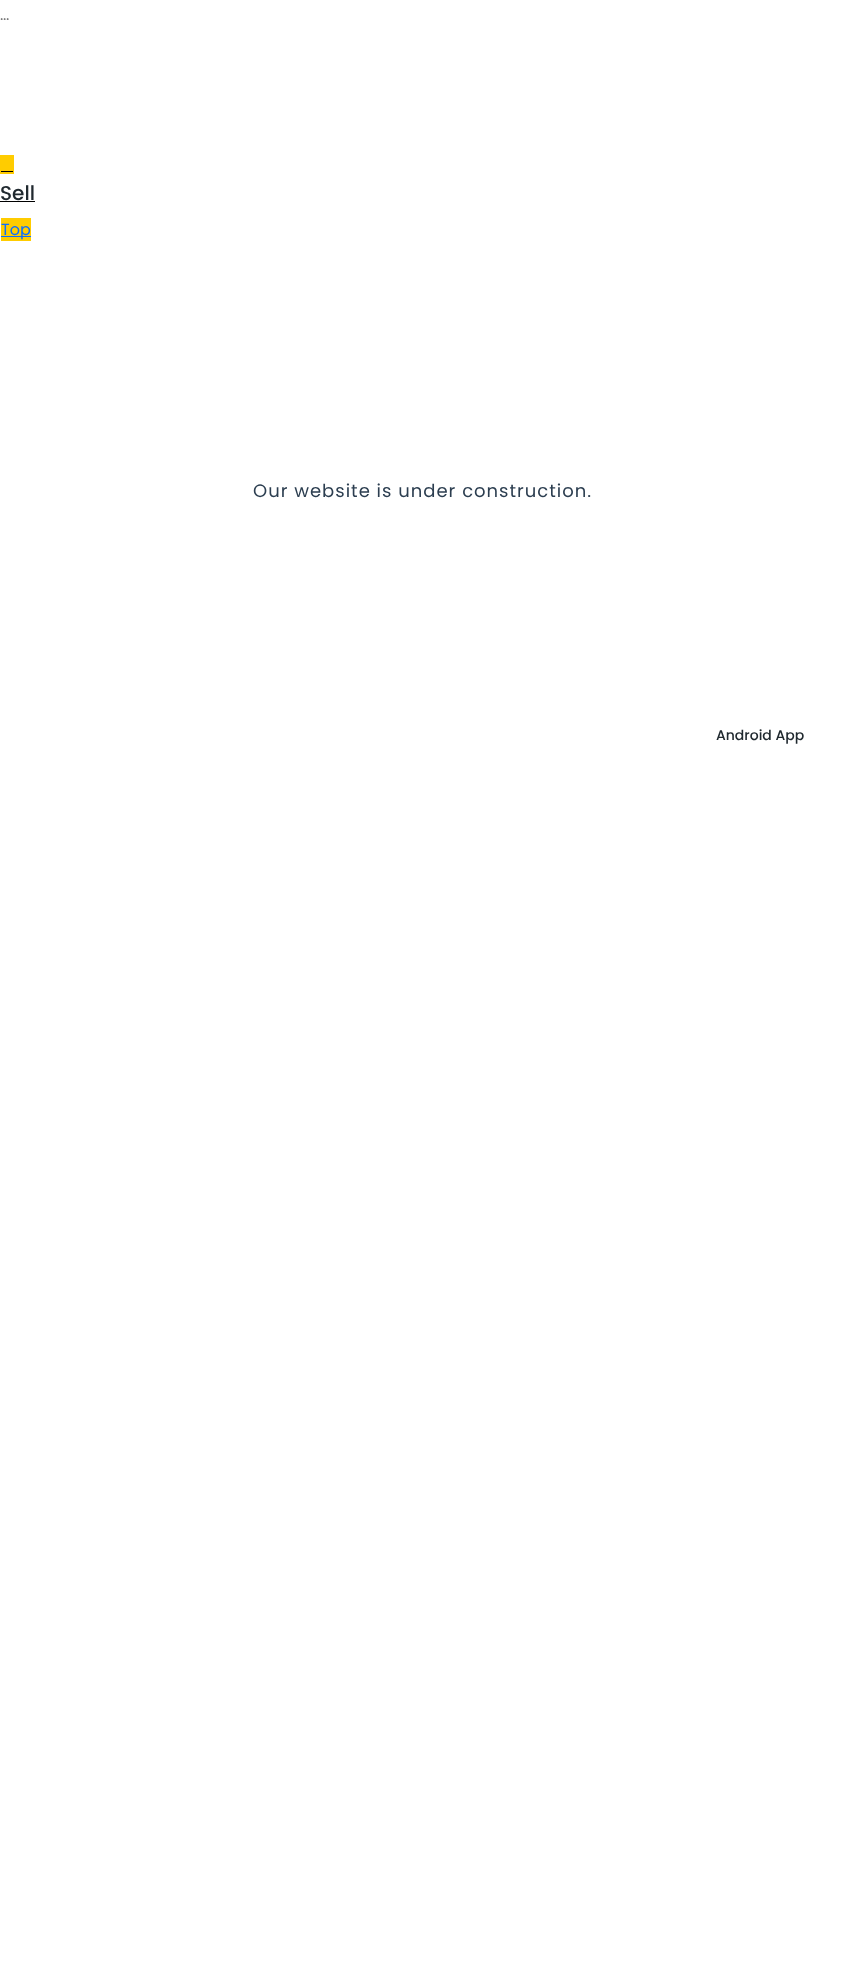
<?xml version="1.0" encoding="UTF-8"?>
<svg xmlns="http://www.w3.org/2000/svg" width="846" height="1983">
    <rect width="100%" height="100%" fill="#FFFFFF"/>
    <text x="0" y="20" font-family="Poppins" font-size="16" fill="#777777">…</text>
    <rect x="0" y="155" width="14" height="19" fill="#FFCC00"/>
    <rect x="1" y="171" width="12" height="1" fill="#000000"/>
    <text x="0" y="200" font-family="Poppins" font-size="20" font-weight="500" fill="#20292F">Sell</text>
    <rect x="0" y="201" width="35" height="1" fill="#000000"/>
    <rect x="1" y="218" width="30" height="23" fill="#FFCC00"/>
    <rect x="1" y="236" width="30" height="1" fill="#0D6EFD"/>
    <text x="1" y="235" font-family="Poppins" font-size="16" fill="#0D6EFD">Top</text>
    <text x="253" y="497" font-family="Poppins" font-size="18" letter-spacing="1" fill="#2C3E50">Our website is under construction.</text>
    <text x="716" y="740" font-family="Poppins" font-size="14" font-weight="500" fill="#20292F">Android App</text>
</svg>
